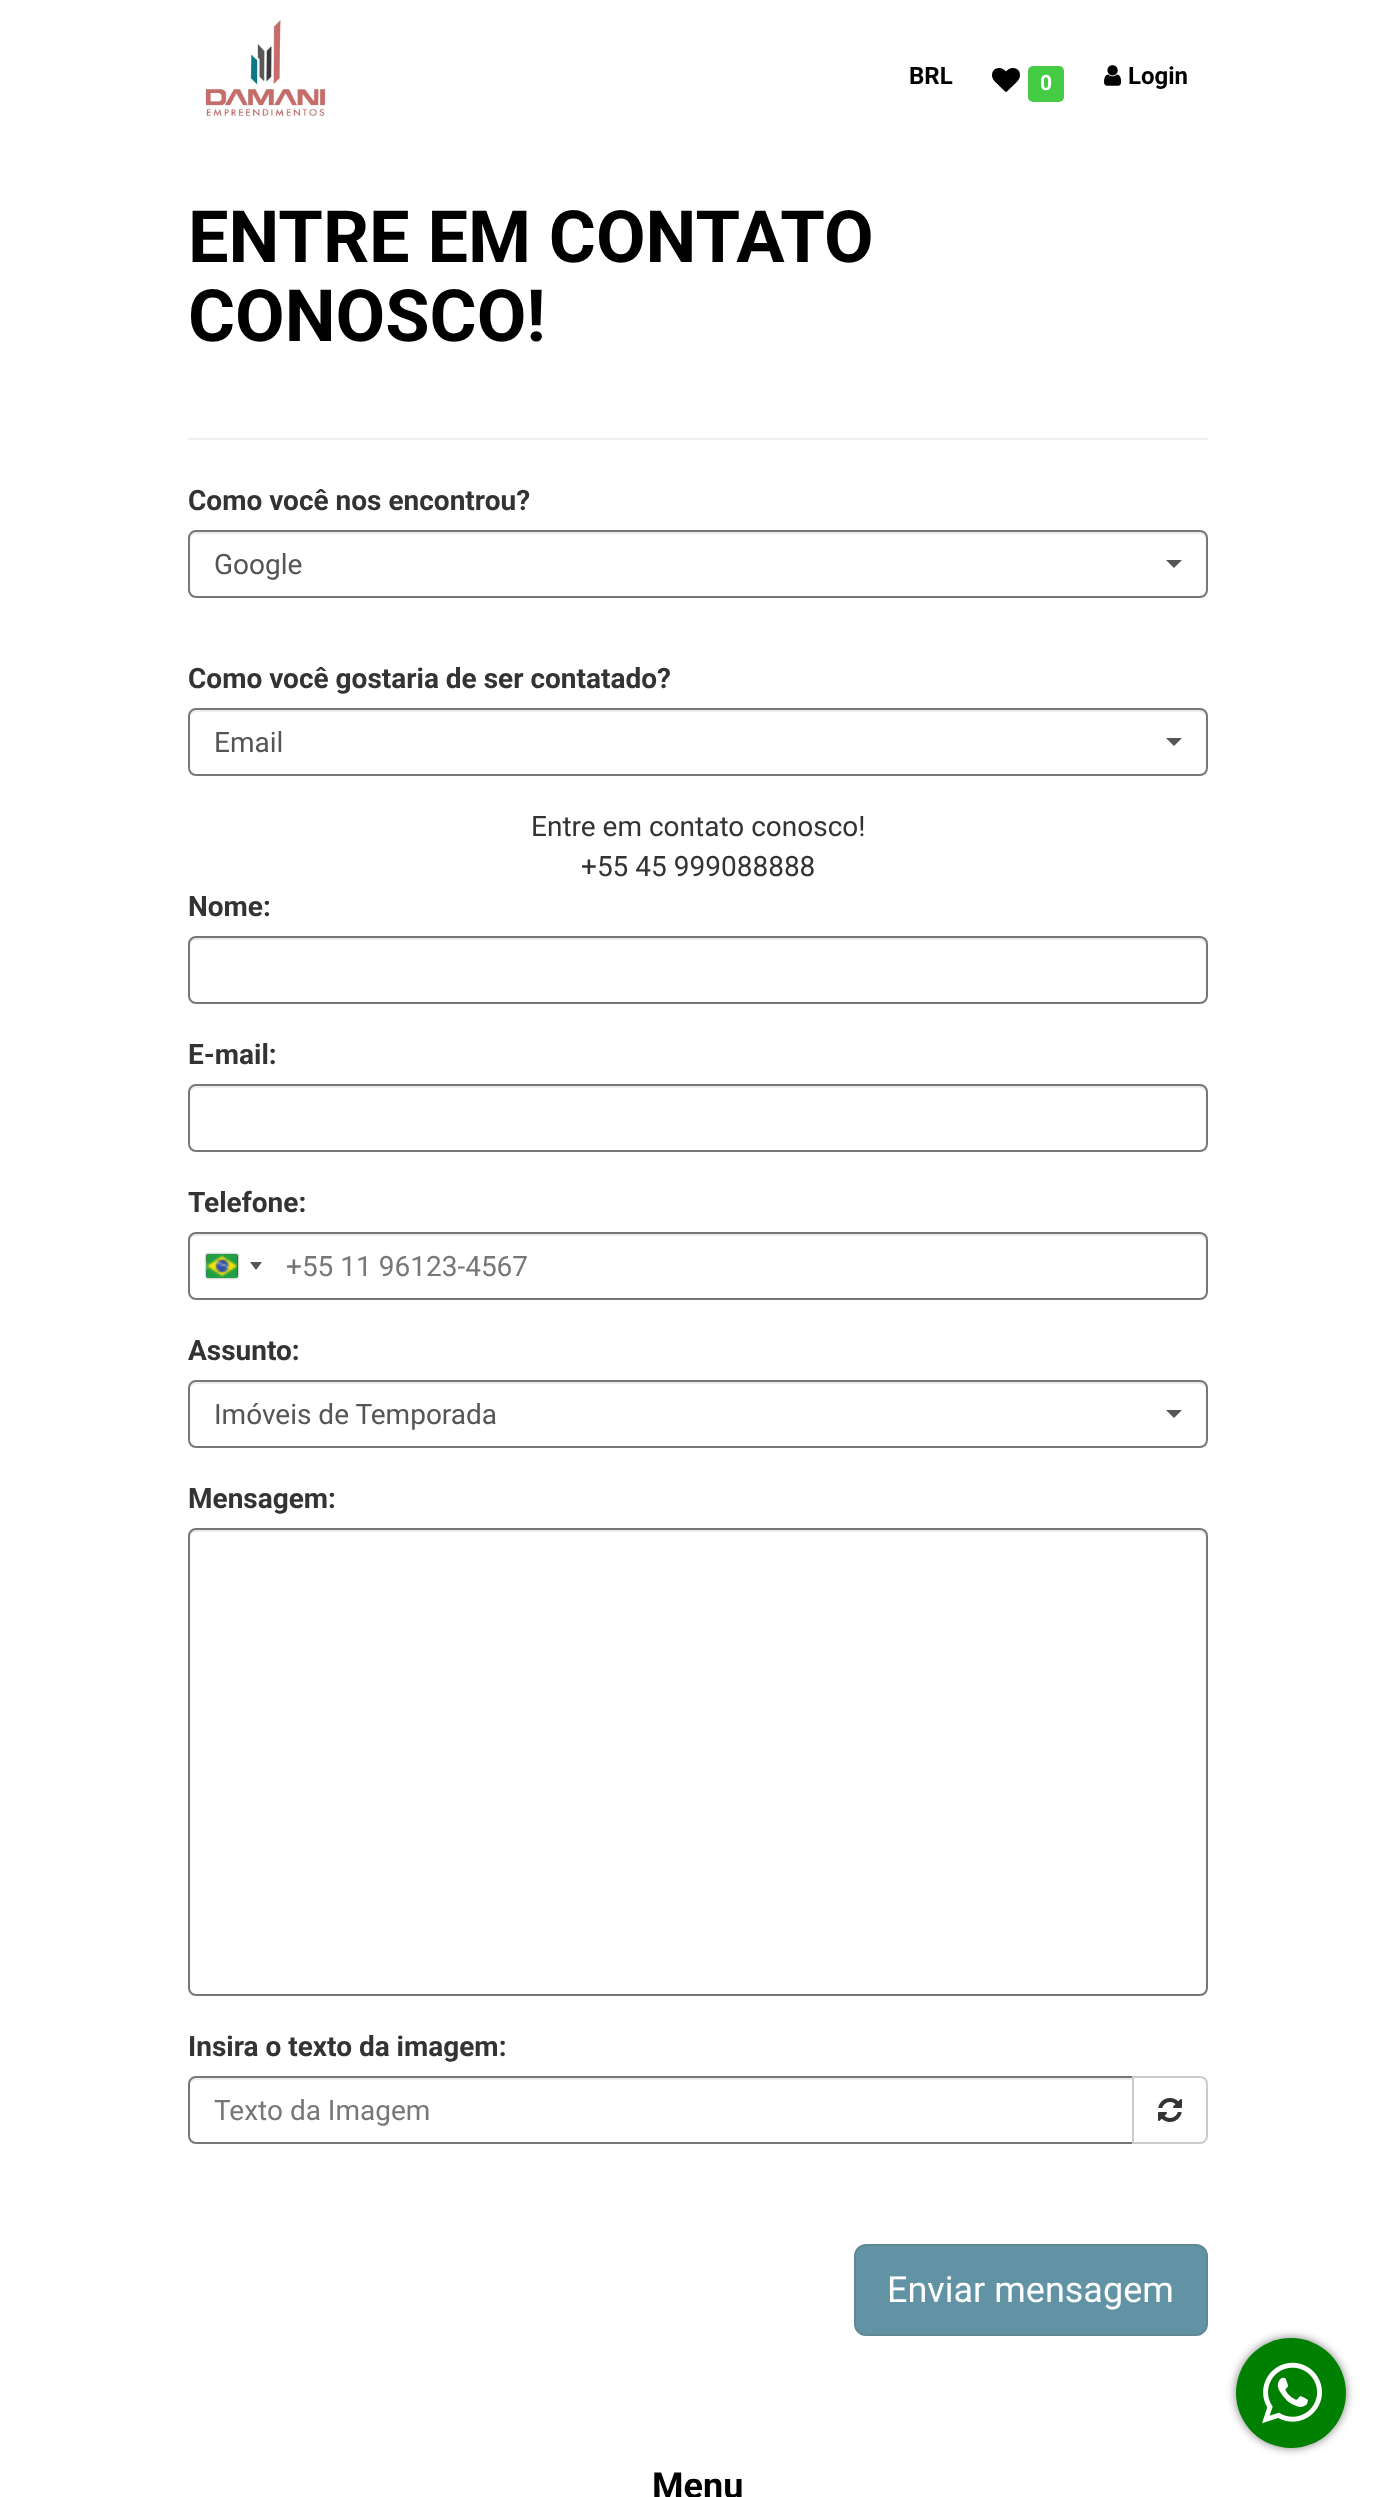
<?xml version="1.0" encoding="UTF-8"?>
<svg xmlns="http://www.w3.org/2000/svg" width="1395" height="2497">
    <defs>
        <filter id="blur1" x="-50%" y="-200%" width="200%" height="500%"><feGaussianBlur stdDeviation="1"/></filter>
        <filter id="blur2" x="-50%" y="-200%" width="200%" height="500%"><feGaussianBlur stdDeviation="5"/></filter>
    </defs>
    <rect width="100%" height="100%" fill="#FFFFFF"/>
    <image x="205" y="20" width="121" height="97" href="img_01.png"/>
    <text x="909" y="84" font-family="Roboto" font-size="24" font-weight="700" fill="#000000">BRL</text>
    <image x="992" y="68" width="28" height="24" href="img_02.png"/>
    <rect x="1028" y="66" width="36" height="36" rx="5" fill="#44CC44"/>
    <text x="1040" y="90" font-family="Roboto" font-size="21" font-weight="700" fill="#FFFFFF">0</text>
    <image x="1104" y="65" width="18" height="21" href="img_03.png"/>
    <text x="1128" y="84" font-family="Roboto" font-size="24" font-weight="700" fill="#000000">Login</text>
    <text font-family="Roboto" font-size="72" font-weight="700" fill="#000000">
        <tspan x="188" y="262">ENTRE EM CONTATO</tspan>
        <tspan x="188" y="341">CONOSCO!</tspan>
    </text>
    <rect x="188" y="438" width="1020" height="2" fill="#EEEEEE"/>
    <text x="188" y="510" font-family="Roboto" font-size="28" font-weight="700" fill="#333333">Como você nos encontrou?</text>
    <path d="M 196 534 H 1200 C 1203 534 1206 537 1206 540 V 538 C 1206 535 1203 532 1200 532 H 196 C 193 532 190 535 190 538 V 540 C 190 537 193 534 196 534 Z" fill="#ECECEC"/>
    <rect x="189" y="531" width="1018" height="66" rx="7" fill="none" stroke="#777777" stroke-width="2"/>
    <text x="214" y="574" font-family="Roboto" font-size="28" fill="#555555">Google</text>
    <path d="M 1166 560 H 1182 L 1174 568 Z" fill="#555555"/>
    <text x="188" y="688" font-family="Roboto" font-size="28" font-weight="700" fill="#333333">Como você gostaria de ser contatado?</text>
    <path d="M 196 712 H 1200 C 1203 712 1206 715 1206 718 V 716 C 1206 713 1203 710 1200 710 H 196 C 193 710 190 713 190 716 V 718 C 190 715 193 712 196 712 Z" fill="#ECECEC"/>
    <rect x="189" y="709" width="1018" height="66" rx="7" fill="none" stroke="#777777" stroke-width="2"/>
    <text x="214" y="752" font-family="Roboto" font-size="28" fill="#555555">Email</text>
    <path d="M 1166 738 H 1182 L 1174 746 Z" fill="#555555"/>
    <text x="531" y="836" font-family="Roboto" font-size="28" fill="#333333">Entre em contato conosco!</text>
    <text x="581" y="876" font-family="Roboto" font-size="28" fill="#333333">+55 45 999088888</text>
    <text x="188" y="916" font-family="Roboto" font-size="28" font-weight="700" fill="#333333">Nome:</text>
    <path d="M 196 940 H 1200 C 1203 940 1206 943 1206 946 V 944 C 1206 941 1203 938 1200 938 H 196 C 193 938 190 941 190 944 V 946 C 190 943 193 940 196 940 Z" fill="#ECECEC"/>
    <rect x="189" y="937" width="1018" height="66" rx="7" fill="none" stroke="#777777" stroke-width="2"/>
    <text x="188" y="1064" font-family="Roboto" font-size="28" font-weight="700" fill="#333333">E-mail:</text>
    <path d="M 196 1088 H 1200 C 1203 1088 1206 1091 1206 1094 V 1092 C 1206 1089 1203 1086 1200 1086 H 196 C 193 1086 190 1089 190 1092 V 1094 C 190 1091 193 1088 196 1088 Z" fill="#ECECEC"/>
    <rect x="189" y="1085" width="1018" height="66" rx="7" fill="none" stroke="#777777" stroke-width="2"/>
    <text x="188" y="1212" font-family="Roboto" font-size="28" font-weight="700" fill="#333333">Telefone:</text>
    <path d="M 196 1236 H 1200 C 1203 1236 1206 1239 1206 1242 V 1240 C 1206 1237 1203 1234 1200 1234 H 196 C 193 1234 190 1237 190 1240 V 1242 C 190 1239 193 1236 196 1236 Z" fill="#ECECEC"/>
    <rect x="189" y="1233" width="1018" height="66" rx="7" fill="none" stroke="#777777" stroke-width="2"/>
    <rect x="206" y="1254" width="32" height="24" rx="2" fill="#888888" filter="url(#blur1)"/>
    <image x="206" y="1254" width="32" height="24" href="img_04.png"/>
    <path d="M 250 1262 H 262 L 256 1270 Z" fill="#555555"/>
    <text x="286" y="1276" font-family="Roboto" font-size="28" fill="#777777">+55 11 96123-4567</text>
    <text x="188" y="1360" font-family="Roboto" font-size="28" font-weight="700" fill="#333333">Assunto:</text>
    <path d="M 196 1384 H 1200 C 1203 1384 1206 1387 1206 1390 V 1388 C 1206 1385 1203 1382 1200 1382 H 196 C 193 1382 190 1385 190 1388 V 1390 C 190 1387 193 1384 196 1384 Z" fill="#ECECEC"/>
    <rect x="189" y="1381" width="1018" height="66" rx="7" fill="none" stroke="#777777" stroke-width="2"/>
    <text x="214" y="1424" font-family="Roboto" font-size="28" fill="#555555">Imóveis de Temporada</text>
    <path d="M 1166 1410 H 1182 L 1174 1418 Z" fill="#555555"/>
    <text x="188" y="1508" font-family="Roboto" font-size="28" font-weight="700" fill="#333333">Mensagem:</text>
    <path d="M 196 1532 H 1200 C 1203 1532 1206 1535 1206 1538 V 1536 C 1206 1533 1203 1530 1200 1530 H 196 C 193 1530 190 1533 190 1536 V 1538 C 190 1535 193 1532 196 1532 Z" fill="#ECECEC"/>
    <rect x="189" y="1529" width="1018" height="466" rx="7" fill="none" stroke="#777777" stroke-width="2"/>
    <text x="188" y="2056" font-family="Roboto" font-size="28" font-weight="700" fill="#333333">Insira o texto da imagem:</text>
    <path d="M 196 2080 H 1132 V 2078 H 196 C 191 2078 190 2082 190 2086 C 190 2083 193 2080 196 2080 Z" fill="#ECECEC"/>
    <path d="M 196 2077 H 1133 V 2143 H 196 C 192 2143 189 2140 189 2136 V 2084 C 189 2080 192 2077 196 2077 Z" fill="none" stroke="#777777" stroke-width="2"/>
    <text x="214" y="2120" font-family="Roboto" font-size="28" fill="#777777">Texto da Imagem</text>
    <path d="M 1133 2077 H 1200 C 1204 2077 1207 2080 1207 2084 V 2136 C 1207 2140 1204 2143 1200 2143 H 1133 Z" fill="#FFFFFF" stroke="#CCCCCC" stroke-width="2"/>
    <image x="1158" y="2098" width="24" height="24" href="img_05.png"/>
    <rect x="855" y="2245" width="352" height="90" rx="11" fill="#6293A5" stroke="#608796" stroke-width="2"/>
    <text x="887" y="2302" font-family="Roboto" font-size="36" fill="#FFFFFF">Enviar mensagem</text>
    <rect x="1236" y="2338" width="110" height="110" rx="55" fill="#000000" fill-opacity="0.5" filter="url(#blur2)"/>
    <circle cx="1291" cy="2393" r="55" fill="#008000"/>
    <image x="1262" y="2362" width="60" height="62" href="img_06.png"/>
    <text x="652" y="2498" font-family="Roboto" font-size="36" font-weight="700" fill="#000000">Menu</text>
</svg>
